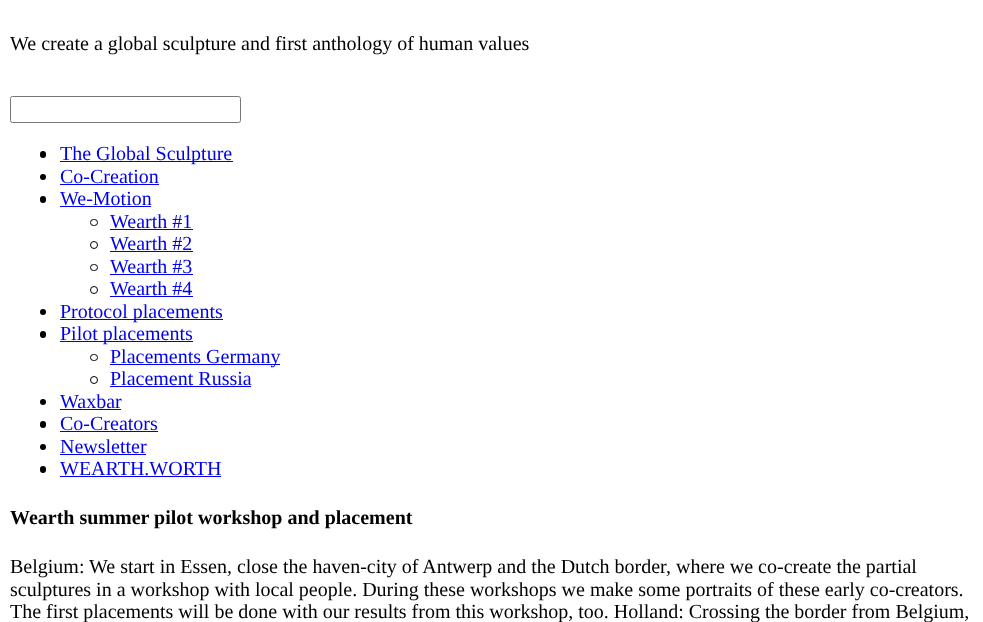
<?xml version="1.0" encoding="UTF-8"?>
<svg xmlns="http://www.w3.org/2000/svg" width="983" height="622">
    <rect width="100%" height="100%" fill="#FFFFFF"/>
    <text x="10" y="50" font-family="Liberation Serif" font-size="20" fill="#000000">We create a global sculpture and first anthology of human values</text>
    <rect x="10.5" y="96.5" width="230" height="26" rx="2" fill="none" stroke="#767676"/>
    <rect x="40" y="151" width="6" height="7" rx="3" fill="#000000"/>
    <rect x="60" y="161" width="173" height="1" fill="#0000EE"/>
    <text x="60" y="160" font-family="Liberation Serif" font-size="20" fill="#0000EE">The Global Sculpture</text>
    <circle cx="43" cy="177" r="3" fill="#000000"/>
    <text x="60" y="183" font-family="Liberation Serif" font-size="20" fill="#0000EE">Co-Creation</text>
    <rect x="60" y="184" width="99" height="1" fill="#0000EE"/>
    <rect x="40" y="196" width="6" height="7" rx="3" fill="#000000"/>
    <text x="60" y="205" font-family="Liberation Serif" font-size="20" fill="#0000EE">We-Motion</text>
    <rect x="60" y="206" width="91" height="1" fill="#0000EE"/>
    <rect x="90.5" y="219.5" width="7" height="6" rx="3" fill="none" stroke="#000000"/>
    <text x="110" y="228" font-family="Liberation Serif" font-size="20" fill="#0000EE">Wearth #1</text>
    <rect x="110" y="229" width="83" height="1" fill="#0000EE"/>
    <circle cx="94" cy="245" r="3.5" fill="none" stroke="#000000"/>
    <text x="110" y="250" font-family="Liberation Serif" font-size="20" fill="#0000EE">Wearth #2</text>
    <rect x="110" y="251" width="83" height="1" fill="#0000EE"/>
    <rect x="90.5" y="264.5" width="7" height="6" rx="3" fill="none" stroke="#000000"/>
    <text x="110" y="273" font-family="Liberation Serif" font-size="20" fill="#0000EE">Wearth #3</text>
    <rect x="110" y="274" width="83" height="1" fill="#0000EE"/>
    <circle cx="94" cy="290" r="3.5" fill="none" stroke="#000000"/>
    <text x="110" y="295" font-family="Liberation Serif" font-size="20" fill="#0000EE">Wearth #4</text>
    <rect x="110" y="296" width="83" height="1" fill="#0000EE"/>
    <circle cx="43" cy="312" r="3" fill="#000000"/>
    <rect x="60" y="319" width="163" height="1" fill="#0000EE"/>
    <text x="60" y="318" font-family="Liberation Serif" font-size="20" fill="#0000EE">Protocol placements</text>
    <rect x="40" y="331" width="6" height="7" rx="3" fill="#000000"/>
    <rect x="60" y="341" width="133" height="1" fill="#0000EE"/>
    <text x="60" y="340" font-family="Liberation Serif" font-size="20" fill="#0000EE">Pilot placements</text>
    <rect x="90.5" y="354.5" width="7" height="6" rx="3" fill="none" stroke="#000000"/>
    <rect x="110" y="364" width="170" height="1" fill="#0000EE"/>
    <text x="110" y="363" font-family="Liberation Serif" font-size="20" fill="#0000EE">Placements Germany</text>
    <circle cx="94" cy="380" r="3.5" fill="none" stroke="#000000"/>
    <text x="110" y="385" font-family="Liberation Serif" font-size="20" fill="#0000EE">Placement Russia</text>
    <rect x="110" y="386" width="141" height="1" fill="#0000EE"/>
    <circle cx="43" cy="402" r="3" fill="#000000"/>
    <text x="60" y="408" font-family="Liberation Serif" font-size="20" fill="#0000EE">Waxbar</text>
    <rect x="60" y="409" width="61" height="1" fill="#0000EE"/>
    <rect x="40" y="421" width="6" height="7" rx="3" fill="#000000"/>
    <text x="60" y="430" font-family="Liberation Serif" font-size="20" fill="#0000EE">Co-Creators</text>
    <rect x="60" y="431" width="98" height="1" fill="#0000EE"/>
    <circle cx="43" cy="447" r="3" fill="#000000"/>
    <text x="60" y="453" font-family="Liberation Serif" font-size="20" fill="#0000EE">Newsletter</text>
    <rect x="60" y="454" width="86" height="1" fill="#0000EE"/>
    <rect x="40" y="466" width="6" height="7" rx="3" fill="#000000"/>
    <text x="60" y="475" font-family="Liberation Serif" font-size="20" fill="#0000EE">WEARTH.WORTH</text>
    <rect x="60" y="476" width="161" height="1" fill="#0000EE"/>
    <text x="10" y="524" font-family="Liberation Serif" font-size="20" font-weight="700" fill="#000000">Wearth summer pilot workshop and placement</text>
    <text font-family="Liberation Serif" font-size="20" fill="#000000">
        <tspan x="10" y="573">Belgium: We start in Essen, close the haven-city of Antwerp and the Dutch border, where we co-create the partial</tspan>
        <tspan x="10" y="596">sculptures in a workshop with local people. During these workshops we make some portraits of these early co-creators.</tspan>
        <tspan x="10" y="618">The first placements will be done with our results from this workshop, too. Holland: Crossing the border from Belgium,</tspan>
    </text>
</svg>
